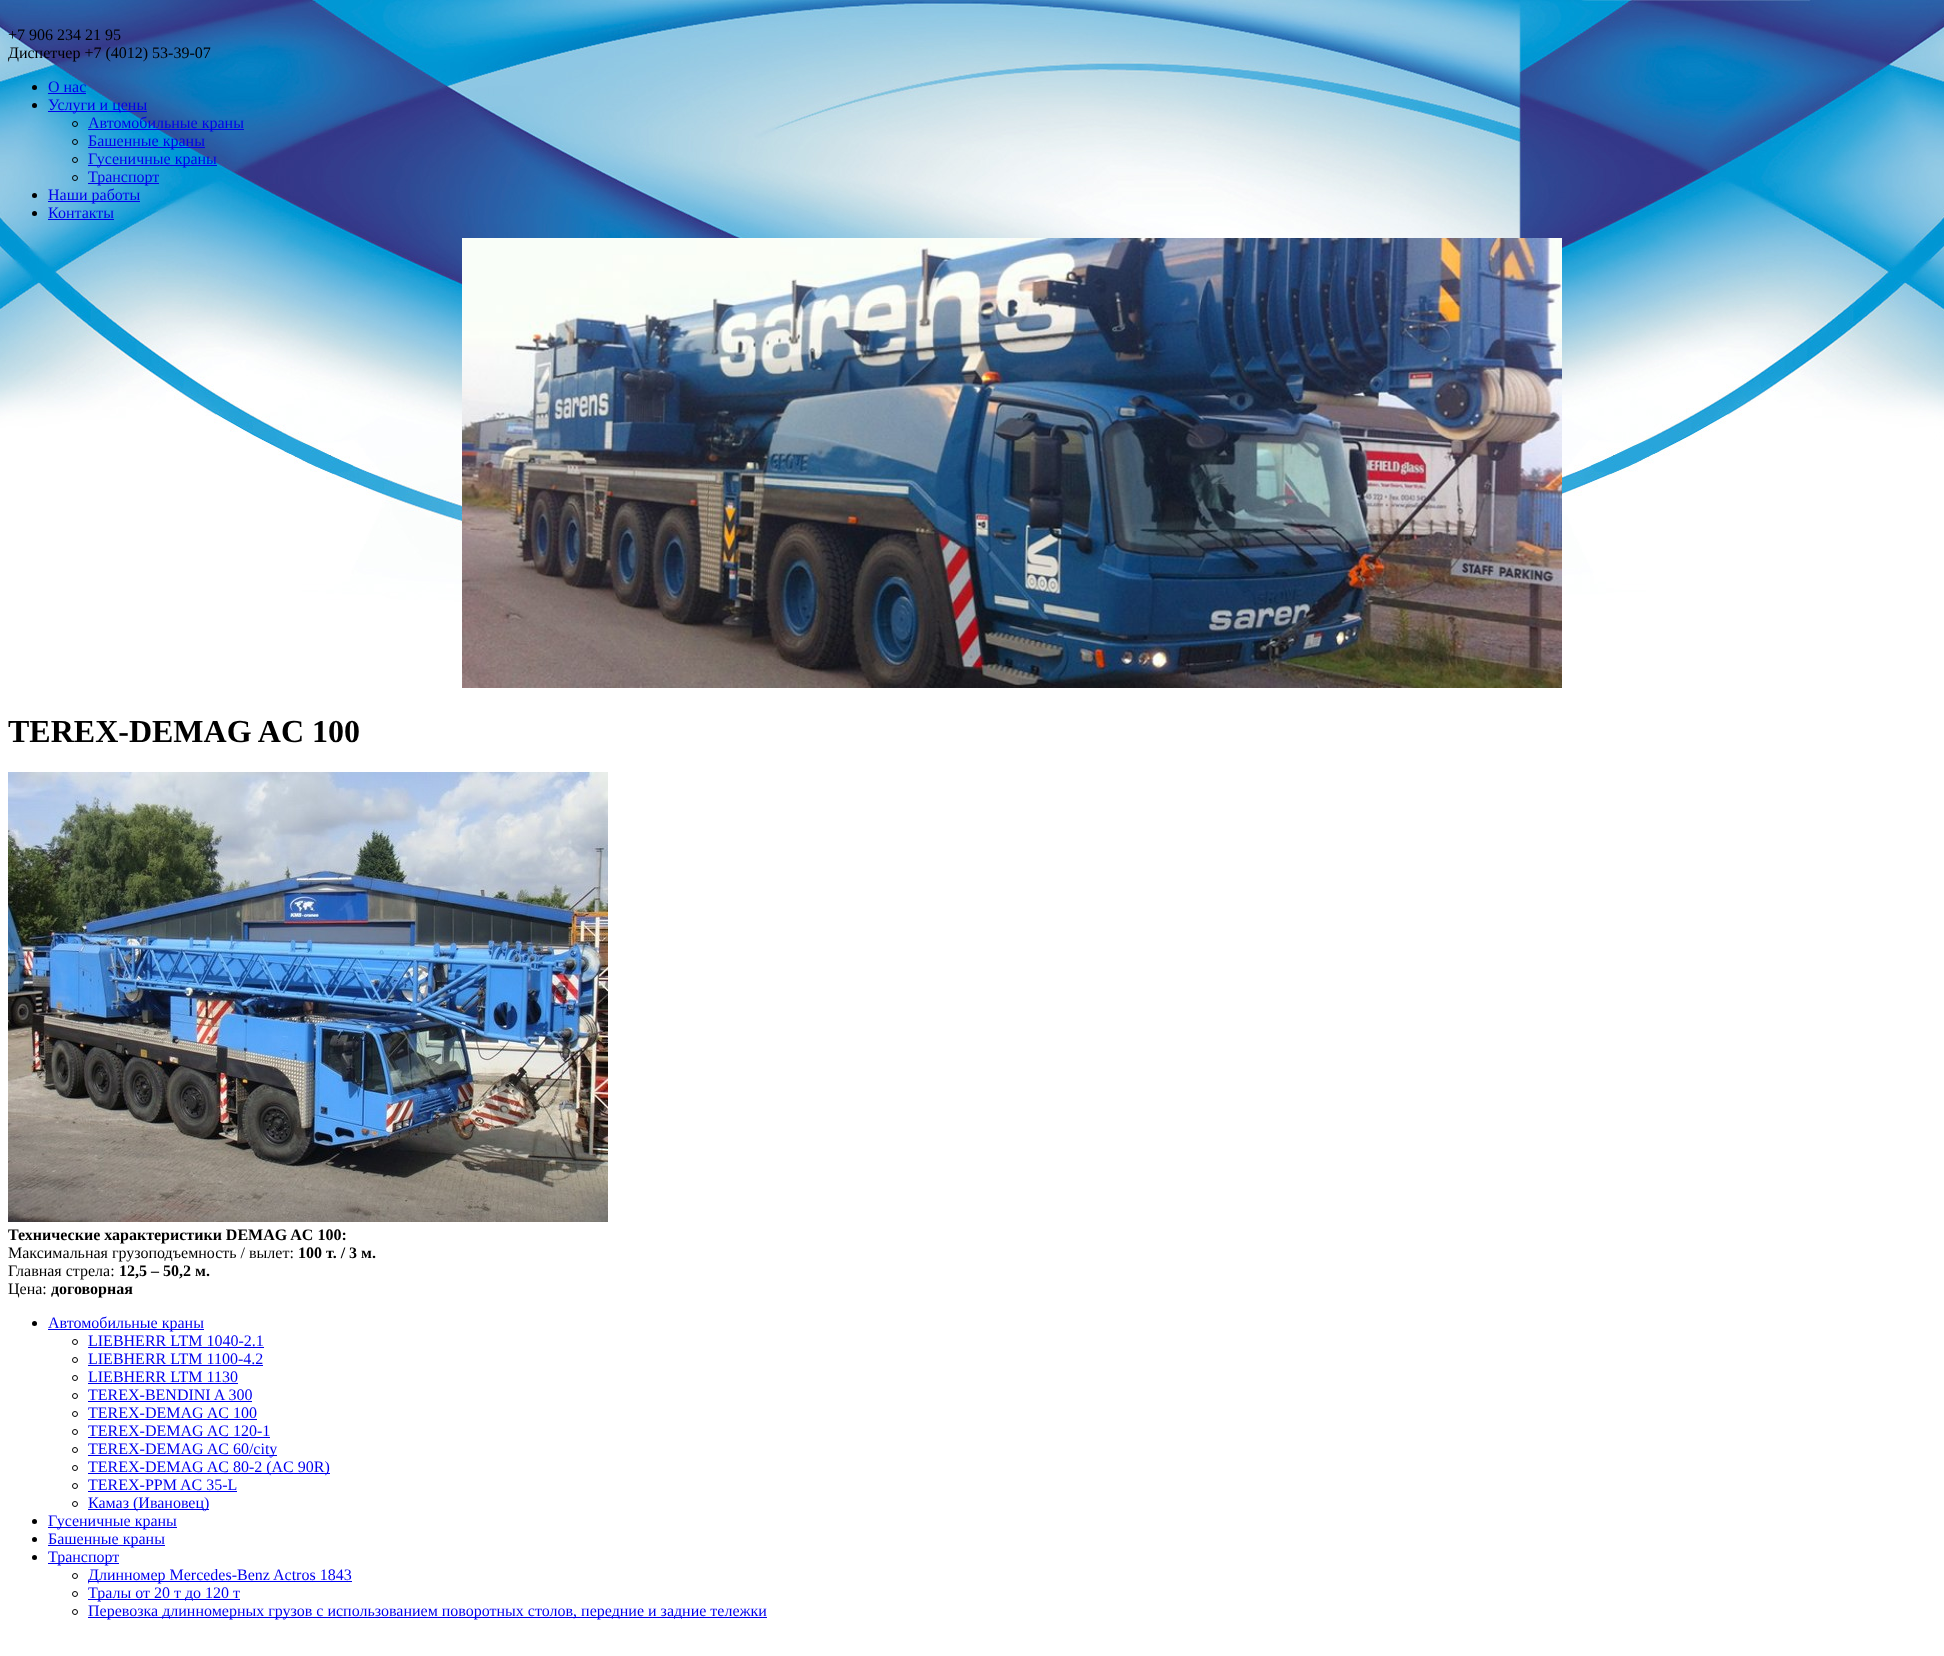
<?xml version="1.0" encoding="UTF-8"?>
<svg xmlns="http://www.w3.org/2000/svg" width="1944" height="1656">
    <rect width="100%" height="100%" fill="#FFFFFF"/>
    <image x="0" y="0" width="1944" height="615" href="img_01.png"/>
    <text font-family="Liberation Serif" font-size="16" fill="#000000">
        <tspan x="8" y="40">+7 906 234 21 95</tspan>
        <tspan x="8" y="58">Диспетчер +7 (4012) 53-39-07</tspan>
    </text>
    <circle cx="34.5" cy="87.5" r="2.5" fill="#000000"/>
    <text x="48" y="92" font-family="Liberation Serif" font-size="16" fill="#0000EE">О нас</text>
    <rect x="48" y="93" width="38" height="1" fill="#0000EE"/>
    <circle cx="34.5" cy="105.5" r="2.5" fill="#000000"/>
    <rect x="48" y="111" width="99" height="1" fill="#0000EE"/>
    <text x="48" y="110" font-family="Liberation Serif" font-size="16" fill="#0000EE">Услуги и цены</text>
    <circle cx="75" cy="124" r="2.5" fill="none" stroke="#000000"/>
    <rect x="88" y="129" width="156" height="1" fill="#0000EE"/>
    <text x="88" y="128" font-family="Liberation Serif" font-size="16" fill="#0000EE">Автомобильные краны</text>
    <circle cx="75" cy="142" r="2.5" fill="none" stroke="#000000"/>
    <rect x="88" y="147" width="117" height="1" fill="#0000EE"/>
    <text x="88" y="146" font-family="Liberation Serif" font-size="16" fill="#0000EE">Башенные краны</text>
    <circle cx="75" cy="160" r="2.5" fill="none" stroke="#000000"/>
    <rect x="88" y="165" width="129" height="1" fill="#0000EE"/>
    <text x="88" y="164" font-family="Liberation Serif" font-size="16" fill="#0000EE">Гусеничные краны</text>
    <circle cx="75" cy="178" r="2.5" fill="none" stroke="#000000"/>
    <rect x="88" y="183" width="71" height="1" fill="#0000EE"/>
    <text x="88" y="182" font-family="Liberation Serif" font-size="16" fill="#0000EE">Транспорт</text>
    <circle cx="34.5" cy="195.5" r="2.5" fill="#000000"/>
    <rect x="48" y="201" width="92" height="1" fill="#0000EE"/>
    <text x="48" y="200" font-family="Liberation Serif" font-size="16" fill="#0000EE">Наши работы</text>
    <circle cx="34.5" cy="213.5" r="2.5" fill="#000000"/>
    <text x="48" y="218" font-family="Liberation Serif" font-size="16" fill="#0000EE">Контакты</text>
    <rect x="48" y="219" width="66" height="1" fill="#0000EE"/>
    <image x="462" y="238" width="1100" height="450" href="img_02.png"/>
    <text x="8" y="742" font-family="Liberation Serif" font-size="32" font-weight="700" fill="#000000">TEREX-DEMAG AC 100</text>
    <image x="8" y="772" width="600" height="450" href="img_03.png"/>
    <text x="8" y="1240" font-family="Liberation Serif" font-size="16" font-weight="700" fill="#000000">Технические характеристики DEMAG AC 100:</text>
    <text x="8" y="1258" font-family="Liberation Serif" font-size="16" fill="#000000">Максимальная грузоподъемность / вылет:</text>
    <text x="298" y="1258" font-family="Liberation Serif" font-size="16" font-weight="700" fill="#000000">100 т. / 3 м.</text>
    <text x="8" y="1276" font-family="Liberation Serif" font-size="16" fill="#000000">Главная стрела:</text>
    <text x="119" y="1276" font-family="Liberation Serif" font-size="16" font-weight="700" fill="#000000">12,5 – 50,2 м.</text>
    <text x="8" y="1294" font-family="Liberation Serif" font-size="16" fill="#000000">Цена:</text>
    <text x="51" y="1294" font-family="Liberation Serif" font-size="16" font-weight="700" fill="#000000">договорная</text>
    <circle cx="34.5" cy="1323.5" r="2.5" fill="#000000"/>
    <rect x="48" y="1329" width="156" height="1" fill="#0000EE"/>
    <text x="48" y="1328" font-family="Liberation Serif" font-size="16" fill="#0000EE">Автомобильные краны</text>
    <circle cx="75" cy="1342" r="2.5" fill="none" stroke="#000000"/>
    <text x="88" y="1346" font-family="Liberation Serif" font-size="16" fill="#0000EE">LIEBHERR LTM 1040-2.1</text>
    <rect x="88" y="1347" width="176" height="1" fill="#0000EE"/>
    <circle cx="75" cy="1360" r="2.5" fill="none" stroke="#000000"/>
    <text x="88" y="1364" font-family="Liberation Serif" font-size="16" fill="#0000EE">LIEBHERR LTM 1100-4.2</text>
    <rect x="88" y="1365" width="175" height="1" fill="#0000EE"/>
    <circle cx="75" cy="1378" r="2.5" fill="none" stroke="#000000"/>
    <text x="88" y="1382" font-family="Liberation Serif" font-size="16" fill="#0000EE">LIEBHERR LTM 1130</text>
    <rect x="88" y="1383" width="150" height="1" fill="#0000EE"/>
    <circle cx="75" cy="1396" r="2.5" fill="none" stroke="#000000"/>
    <text x="88" y="1400" font-family="Liberation Serif" font-size="16" fill="#0000EE">TEREX-BENDINI A 300</text>
    <rect x="88" y="1401" width="164" height="1" fill="#0000EE"/>
    <circle cx="75" cy="1414" r="2.5" fill="none" stroke="#000000"/>
    <text x="88" y="1418" font-family="Liberation Serif" font-size="16" fill="#0000EE">TEREX-DEMAG AC 100</text>
    <rect x="88" y="1419" width="169" height="1" fill="#0000EE"/>
    <circle cx="75" cy="1432" r="2.5" fill="none" stroke="#000000"/>
    <text x="88" y="1436" font-family="Liberation Serif" font-size="16" fill="#0000EE">TEREX-DEMAG AC 120-1</text>
    <rect x="88" y="1437" width="182" height="1" fill="#0000EE"/>
    <circle cx="75" cy="1450" r="2.5" fill="none" stroke="#000000"/>
    <rect x="88" y="1455" width="189" height="1" fill="#0000EE"/>
    <text x="88" y="1454" font-family="Liberation Serif" font-size="16" fill="#0000EE">TEREX-DEMAG AC 60/city</text>
    <circle cx="75" cy="1468" r="2.5" fill="none" stroke="#000000"/>
    <rect x="88" y="1473" width="242" height="1" fill="#0000EE"/>
    <text x="88" y="1472" font-family="Liberation Serif" font-size="16" fill="#0000EE">TEREX-DEMAG AC 80-2 (AC 90R)</text>
    <circle cx="75" cy="1486" r="2.5" fill="none" stroke="#000000"/>
    <text x="88" y="1490" font-family="Liberation Serif" font-size="16" fill="#0000EE">TEREX-PPM</text>
    <text x="180" y="1490" font-family="Liberation Serif" font-size="16" fill="#0000EE">AC 35-L</text>
    <rect x="88" y="1491" width="149" height="1" fill="#0000EE"/>
    <circle cx="75" cy="1504" r="2.5" fill="none" stroke="#000000"/>
    <rect x="88" y="1509" width="121" height="1" fill="#0000EE"/>
    <text x="88" y="1508" font-family="Liberation Serif" font-size="16" fill="#0000EE">Камаз (Ивановец)</text>
    <circle cx="34.5" cy="1521.5" r="2.5" fill="#000000"/>
    <rect x="48" y="1527" width="129" height="1" fill="#0000EE"/>
    <text x="48" y="1526" font-family="Liberation Serif" font-size="16" fill="#0000EE">Гусеничные краны</text>
    <circle cx="34.5" cy="1539.5" r="2.5" fill="#000000"/>
    <rect x="48" y="1545" width="117" height="1" fill="#0000EE"/>
    <text x="48" y="1544" font-family="Liberation Serif" font-size="16" fill="#0000EE">Башенные краны</text>
    <circle cx="34.5" cy="1557.5" r="2.5" fill="#000000"/>
    <rect x="48" y="1563" width="71" height="1" fill="#0000EE"/>
    <text x="48" y="1562" font-family="Liberation Serif" font-size="16" fill="#0000EE">Транспорт</text>
    <circle cx="75" cy="1576" r="2.5" fill="none" stroke="#000000"/>
    <rect x="88" y="1581" width="264" height="1" fill="#0000EE"/>
    <text x="88" y="1580" font-family="Liberation Serif" font-size="16" fill="#0000EE">Длинномер Mercedes-Benz Actros 1843</text>
    <circle cx="75" cy="1594" r="2.5" fill="none" stroke="#000000"/>
    <rect x="88" y="1599" width="152" height="1" fill="#0000EE"/>
    <text x="88" y="1598" font-family="Liberation Serif" font-size="16" fill="#0000EE">Тралы от 20 т до 120 т</text>
    <circle cx="75" cy="1612" r="2.5" fill="none" stroke="#000000"/>
    <rect x="88" y="1617" width="679" height="1" fill="#0000EE"/>
    <text x="88" y="1616" font-family="Liberation Serif" font-size="16" fill="#0000EE">Перевозка длинномерных грузов с использованием поворотных столов, передние и задние тележки</text>
</svg>
